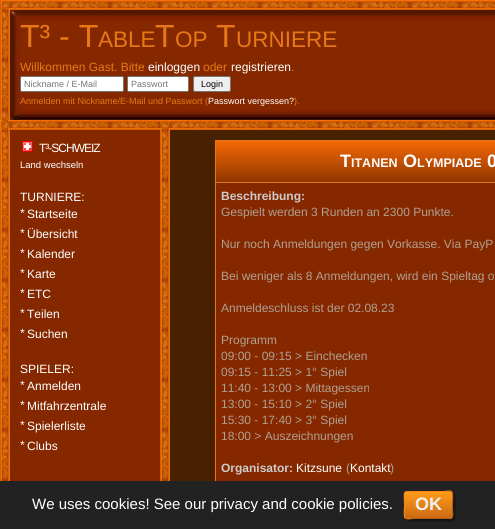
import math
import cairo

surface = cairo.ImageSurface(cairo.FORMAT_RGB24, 495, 529)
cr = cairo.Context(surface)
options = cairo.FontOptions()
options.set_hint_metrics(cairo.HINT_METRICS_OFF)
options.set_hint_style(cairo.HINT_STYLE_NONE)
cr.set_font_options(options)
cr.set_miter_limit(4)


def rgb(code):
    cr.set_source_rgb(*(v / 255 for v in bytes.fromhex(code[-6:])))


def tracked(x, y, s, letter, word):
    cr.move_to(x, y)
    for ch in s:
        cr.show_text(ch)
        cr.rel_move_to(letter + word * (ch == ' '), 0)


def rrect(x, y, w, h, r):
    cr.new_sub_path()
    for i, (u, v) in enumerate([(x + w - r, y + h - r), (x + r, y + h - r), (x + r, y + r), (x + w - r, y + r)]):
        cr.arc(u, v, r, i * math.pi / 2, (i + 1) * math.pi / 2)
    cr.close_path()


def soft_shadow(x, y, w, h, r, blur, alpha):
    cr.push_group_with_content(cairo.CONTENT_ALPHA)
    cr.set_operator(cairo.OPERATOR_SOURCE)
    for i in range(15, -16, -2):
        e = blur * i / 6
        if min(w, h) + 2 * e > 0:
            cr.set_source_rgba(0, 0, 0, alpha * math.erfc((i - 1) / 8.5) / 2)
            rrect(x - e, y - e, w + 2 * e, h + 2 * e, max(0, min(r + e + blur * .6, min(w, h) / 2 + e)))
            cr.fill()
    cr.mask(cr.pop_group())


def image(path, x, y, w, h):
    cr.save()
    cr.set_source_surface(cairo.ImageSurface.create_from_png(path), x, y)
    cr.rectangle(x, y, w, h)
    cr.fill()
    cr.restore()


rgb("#ffffff")
cr.paint()
image("img/1.png", 0, 0, 10, 10)
image("img/2.png", 10, 0, 485, 10)
image("img/3.png", 0, 10, 10, 110)
image("img/4.png", 10, 10, 10, 110)
image("img/5.png", 20, 10, 475, 10)
rgb("#852800")
cr.rectangle(20, 20, 475, 90)
cr.fill()
rgb("#ffffff")
rrect(20.5, 76.5, 103, 15, 1.5)
cr.fill_preserve()
rgb("#767676")
cr.set_line_width(1)
cr.stroke()
rgb("#ffffff")
rrect(127.5, 76.5, 61, 15, 1.5)
cr.fill_preserve()
rgb("#767676")
cr.stroke()
rgb("#efefef")
rrect(193.5, 76.5, 37, 15, 1.5)
cr.fill_preserve()
rgb("#767676")
cr.stroke()
image("img/6.png", 20, 110, 475, 10)
image("img/7.png", 0, 120, 10, 10)
image("img/8.png", 10, 120, 150, 10)
image("img/9.png", 160, 120, 10, 10)
image("img/10.png", 170, 120, 325, 10)
image("img/11.png", 0, 130, 10, 351)
rgb("#852800")
cr.rectangle(10, 130, 150, 351)
cr.fill()
image("img/12.png", 22, 141, 11, 11)
image("img/11.png", 160, 130, 10, 351)
for x, y, w, h, color in [
    (170, 130, 325, 351, "#482100"),
    (215, 140, 280, 1, "#e77817"),
    (215, 140, 1, 341, "#e77817"),
]:
    rgb(color)
    cr.rectangle(x, y, w, h)
    cr.fill()
gradient = cairo.LinearGradient(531, 141, 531, 183)
gradient.add_color_stop_rgba(0, 0.953, 0.412, 0.016, 1)
gradient.add_color_stop_rgba(1, 0.557, 0.204, 0, 1)
cr.set_source(gradient)
cr.rectangle(216, 141, 279, 41)
cr.fill()
for x, y, w, h, color in [
    (216, 183, 279, 298, "#852800"),
    (215, 182, 280, 1, "#e77817"),
    (0, 481, 495, 48, "#222222"),
]:
    rgb(color)
    cr.rectangle(x, y, w, h)
    cr.fill()
rgb("#000000")
soft_shadow(406, 493, 49, 28, 3, 1, 0.5)
cr.save()
rrect(404, 491, 49, 28, 3)
cr.clip()
gradient = cairo.LinearGradient(405, 466, 405, 492)
gradient.add_color_stop_rgba(0, 1, 0.612, 0.098, 1)
gradient.add_color_stop_rgba(1, 0.8, 0.416, 0.078, 1)
cr.set_source(gradient)
cr.rectangle(404, 491, 49, 1)
cr.fill()
gradient = cairo.LinearGradient(405, 492, 405, 518)
gradient.add_color_stop_rgba(0, 1, 0.612, 0.098, 1)
gradient.add_color_stop_rgba(1, 0.8, 0.416, 0.078, 1)
cr.set_source(gradient)
cr.rectangle(404, 492, 49, 26)
cr.fill()
gradient = cairo.LinearGradient(405, 518, 405, 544)
gradient.add_color_stop_rgba(0, 1, 0.612, 0.098, 1)
gradient.add_color_stop_rgba(1, 0.8, 0.416, 0.078, 1)
cr.set_source(gradient)
cr.rectangle(404, 518, 49, 1)
cr.fill()
cr.restore()
cr.new_path()
cr.move_to(452, 492)
cr.curve_to(453.5, 494, 452.5, 502.5, 452.5, 505)
cr.curve_to(452.5, 519, 455.5, 518.5, 443, 518.5)
cr.line_to(414, 518.5)
cr.curve_to(411, 518.5, 407.5, 520, 405, 518)
rgb("#b35d12")
cr.stroke()
cr.new_path()
cr.move_to(405, 518)
cr.curve_to(403.5, 516, 404.5, 507.5, 404.5, 505)
cr.curve_to(404.5, 491, 401.5, 491.5, 414, 491.5)
cr.line_to(443, 491.5)
cr.curve_to(446, 491.5, 449.5, 490, 452, 492)
rgb("#ff8519")
cr.stroke()
cr.select_font_face("Liberation Sans")
cr.set_font_size(32)
rgb("#e77817")
cr.move_to(20, 47)
cr.show_text("T³ - T")
cr.set_font_size(22.5)
cr.move_to(98, 47)
cr.show_text("ABLE")
cr.set_font_size(32)
cr.move_to(155, 47)
cr.show_text("T")
cr.set_font_size(22.5)
cr.move_to(175, 47)
cr.show_text("OP")
cr.set_font_size(32)
cr.move_to(216, 47)
cr.show_text("T")
cr.set_font_size(22.5)
cr.move_to(236, 47)
cr.show_text("URNIERE")
cr.set_font_size(12)
cr.move_to(20, 71)
cr.show_text("Willkommen Gast. Bitte")
rgb("#ffffff")
cr.move_to(148, 71)
cr.show_text("einloggen")
rgb("#e77817")
cr.move_to(203, 71)
cr.show_text("oder")
rgb("#ffffff")
cr.move_to(231, 71)
cr.show_text("registrieren")
rgb("#e77817")
cr.move_to(291, 71)
cr.show_text(".")
cr.set_font_size(9)
rgb("#757575")
cr.move_to(24, 87)
cr.show_text("Nickname / E-Mail")
cr.move_to(131, 87)
cr.show_text("Passwort")
rgb("#000000")
cr.move_to(201, 87)
cr.show_text("Login")
rgb("#e77817")
cr.move_to(20, 104)
cr.show_text("Anmelden mit Nickname/E-Mail und Passwort (")
rgb("#ffffff")
cr.move_to(208, 104)
cr.show_text("Passwort vergessen?")
rgb("#e77817")
cr.move_to(294, 104)
cr.show_text(").")
cr.set_font_size(12)
rgb("#ffffff")
tracked(39, 152, "T³-SCHWEIZ", -1, 0)
cr.set_font_size(9.5)
cr.move_to(20, 168)
cr.show_text("Land wechseln")
cr.set_font_size(12)
for x, y, s in [
    (20, 201, "TURNIERE:"),
    (20, 217, "*"),
    (27, 218, "Startseite"),
    (20, 237, "*"),
    (27, 238, "Übersicht"),
    (20, 257, "*"),
    (27, 258, "Kalender"),
    (20, 277, "*"),
    (27, 278, "Karte"),
    (20, 297, "*"),
    (27, 298, "ETC"),
    (20, 317, "*"),
    (27, 318, "Teilen"),
    (20, 337, "*"),
    (27, 338, "Suchen"),
    (20, 373, "SPIELER:"),
    (20, 389, "*"),
    (27, 390, "Anmelden"),
    (20, 409, "*"),
    (27, 410, "Mitfahrzentrale"),
    (20, 429, "*"),
    (27, 430, "Spielerliste"),
    (20, 449, "*"),
    (27, 450, "Clubs"),
]:
    cr.move_to(x, y)
    cr.show_text(s)
cr.select_font_face("Liberation Sans", cairo.FONT_SLANT_NORMAL, cairo.FONT_WEIGHT_BOLD)
cr.set_font_size(18)
cr.move_to(340, 167)
cr.show_text("T")
cr.set_font_size(12.5)
cr.move_to(351, 167)
cr.show_text("ITANEN")
cr.set_font_size(18)
cr.move_to(403, 167)
cr.show_text("O")
cr.set_font_size(12.5)
cr.move_to(417, 167)
cr.show_text("LYMPIADE")
cr.set_font_size(18)
cr.move_to(487, 167)
cr.show_text("0")
cr.set_font_size(12)
rgb("#cccccc")
cr.move_to(221, 200)
cr.show_text("Beschreibung:")
cr.select_font_face("Liberation Sans")
rgb("#b0a090")
for x, y, s in [
    (221, 216, "Gespielt werden 3 Runden an 2300 Punkte."),
    (221, 248, "Nur noch Anmeldungen gegen Vorkasse. Via PayP"),
    (221, 280, "Bei weniger als 8 Anmeldungen, wird ein Spieltag o"),
    (221, 312, "Anmeldeschluss ist der 02.08.23"),
    (221, 344, "Programm"),
    (221, 360, "09:00 - 09:15 > Einchecken"),
    (221, 376, "09:15 - 11:25 > 1° Spiel"),
    (221, 392, "11:40 - 13:00 > Mittagessen"),
    (221, 408, "13:00 - 15:10 > 2° Spiel"),
    (221, 424, "15:30 - 17:40 > 3° Spiel"),
    (221, 440, "18:00 > Auszeichnungen"),
]:
    cr.move_to(x, y)
    cr.show_text(s)
cr.select_font_face("Liberation Sans", cairo.FONT_SLANT_NORMAL, cairo.FONT_WEIGHT_BOLD)
rgb("#cccccc")
cr.move_to(221, 472)
cr.show_text("Organisator:")
cr.select_font_face("Liberation Sans")
rgb("#ffffff")
cr.move_to(296, 472)
cr.show_text("Kitzsune")
rgb("#b0a090")
cr.move_to(346, 472)
cr.show_text("(")
rgb("#ffffff")
cr.move_to(350, 472)
cr.show_text("Kontakt")
rgb("#b0a090")
cr.move_to(390, 472)
cr.show_text(")")
cr.set_font_size(15)
rgb("#ffffff")
cr.move_to(32, 509)
cr.show_text("We uses cookies! See our privacy and cookie policies.")
cr.select_font_face("Liberation Sans", cairo.FONT_SLANT_NORMAL, cairo.FONT_WEIGHT_BOLD)
cr.set_font_size(18)
rgb("#f0f0f0")
cr.move_to(415, 510)
cr.show_text("OK")
surface.write_to_png("page.png")
